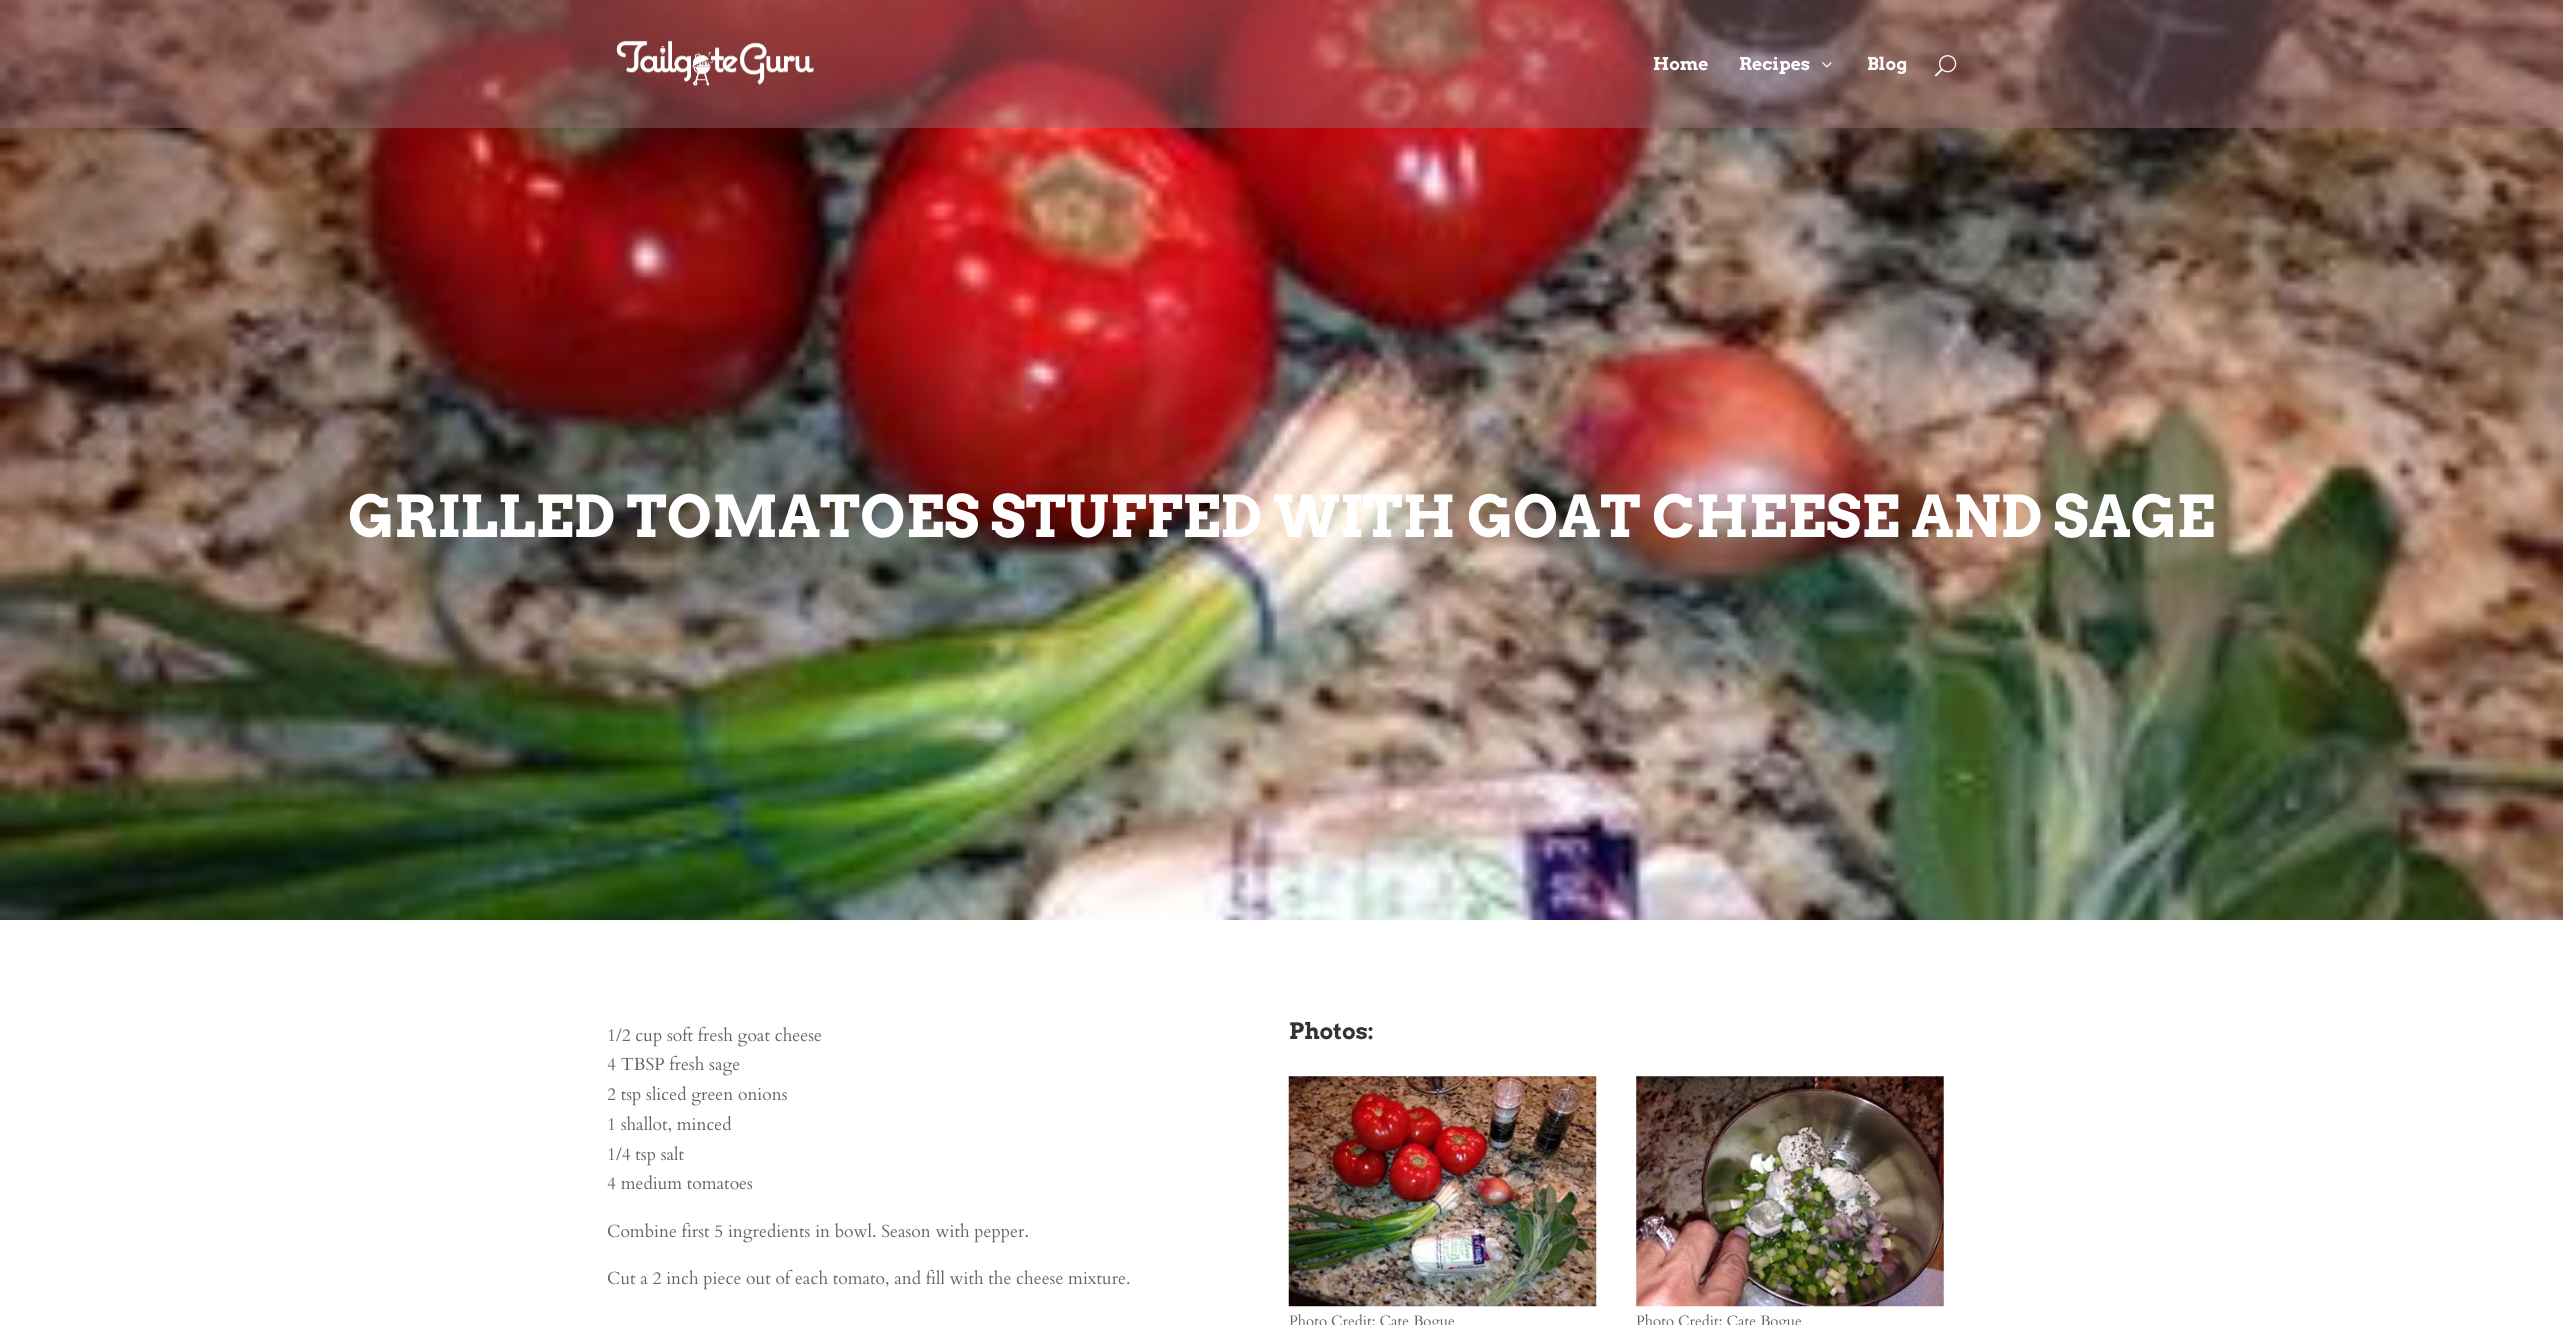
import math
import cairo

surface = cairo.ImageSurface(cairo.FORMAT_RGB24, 2563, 1325)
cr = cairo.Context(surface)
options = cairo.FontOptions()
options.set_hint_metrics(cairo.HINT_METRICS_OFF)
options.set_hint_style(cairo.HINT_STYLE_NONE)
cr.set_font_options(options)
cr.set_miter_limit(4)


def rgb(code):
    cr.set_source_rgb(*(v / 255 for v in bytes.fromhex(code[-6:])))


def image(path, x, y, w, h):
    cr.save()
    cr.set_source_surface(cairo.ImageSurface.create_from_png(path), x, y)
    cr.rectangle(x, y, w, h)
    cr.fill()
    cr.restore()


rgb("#ffffff")
cr.paint()
image("img/4.png", 0, 0, 2563, 920)
cr.set_source_rgba(0.588, 0.424, 0.447, 0.45)
cr.rectangle(0, 0, 2563, 128)
cr.fill()
image("img/1.png", 616, 40, 198, 47)
image("img/2.png", 1822, 62, 10, 6)
image("img/3.png", 1935, 55, 22, 22)
image("img/5.png", 1288, 1076, 309, 231)
image("img/6.png", 1636, 1076, 308, 231)
cr.select_font_face("Arvo", cairo.FONT_SLANT_NORMAL, cairo.FONT_WEIGHT_BOLD)
cr.set_font_size(17.5)
rgb("#ffffff")
for x, y, s in [
    (1653, 70, "Home"),
    (1739, 70, "Recipes"),
    (1867, 70, "Blog"),
]:
    cr.move_to(x, y)
    cr.show_text(s)
cr.set_font_size(57.5)
cr.move_to(348, 537)
cr.show_text("GRILLED TOMATOES STUFFED WITH GOAT CHEESE AND SAGE")
cr.select_font_face("Cardo")
cr.set_font_size(17.5)
rgb("#666666")
for x, y, s in [
    (607, 1041, "1/2 cup soft fresh goat cheese"),
    (607, 1070, "4 TBSP fresh sage"),
    (607, 1100, "2 tsp sliced green onions"),
    (607, 1130, "1 shallot, minced"),
    (607, 1160, "1/4 tsp salt"),
    (607, 1189, "4 medium tomatoes"),
    (607, 1237, "Combine first 5 ingredients in bowl. Season with pepper."),
    (607, 1284, "Cut a 2 inch piece out of each tomato, and fill with the cheese mixture."),
]:
    cr.move_to(x, y)
    cr.show_text(s)
cr.select_font_face("Arvo", cairo.FONT_SLANT_NORMAL, cairo.FONT_WEIGHT_BOLD)
cr.set_font_size(22.5)
rgb("#333333")
cr.move_to(1289, 1039)
cr.show_text("Photos:")
cr.select_font_face("Cardo")
cr.set_font_size(15)
rgb("#666666")
cr.move_to(1289, 1326)
cr.show_text("Photo Credit: Cate Bogue")
cr.move_to(1636, 1326)
cr.show_text("Photo Credit: Cate Bogue")
surface.write_to_png("page.png")
